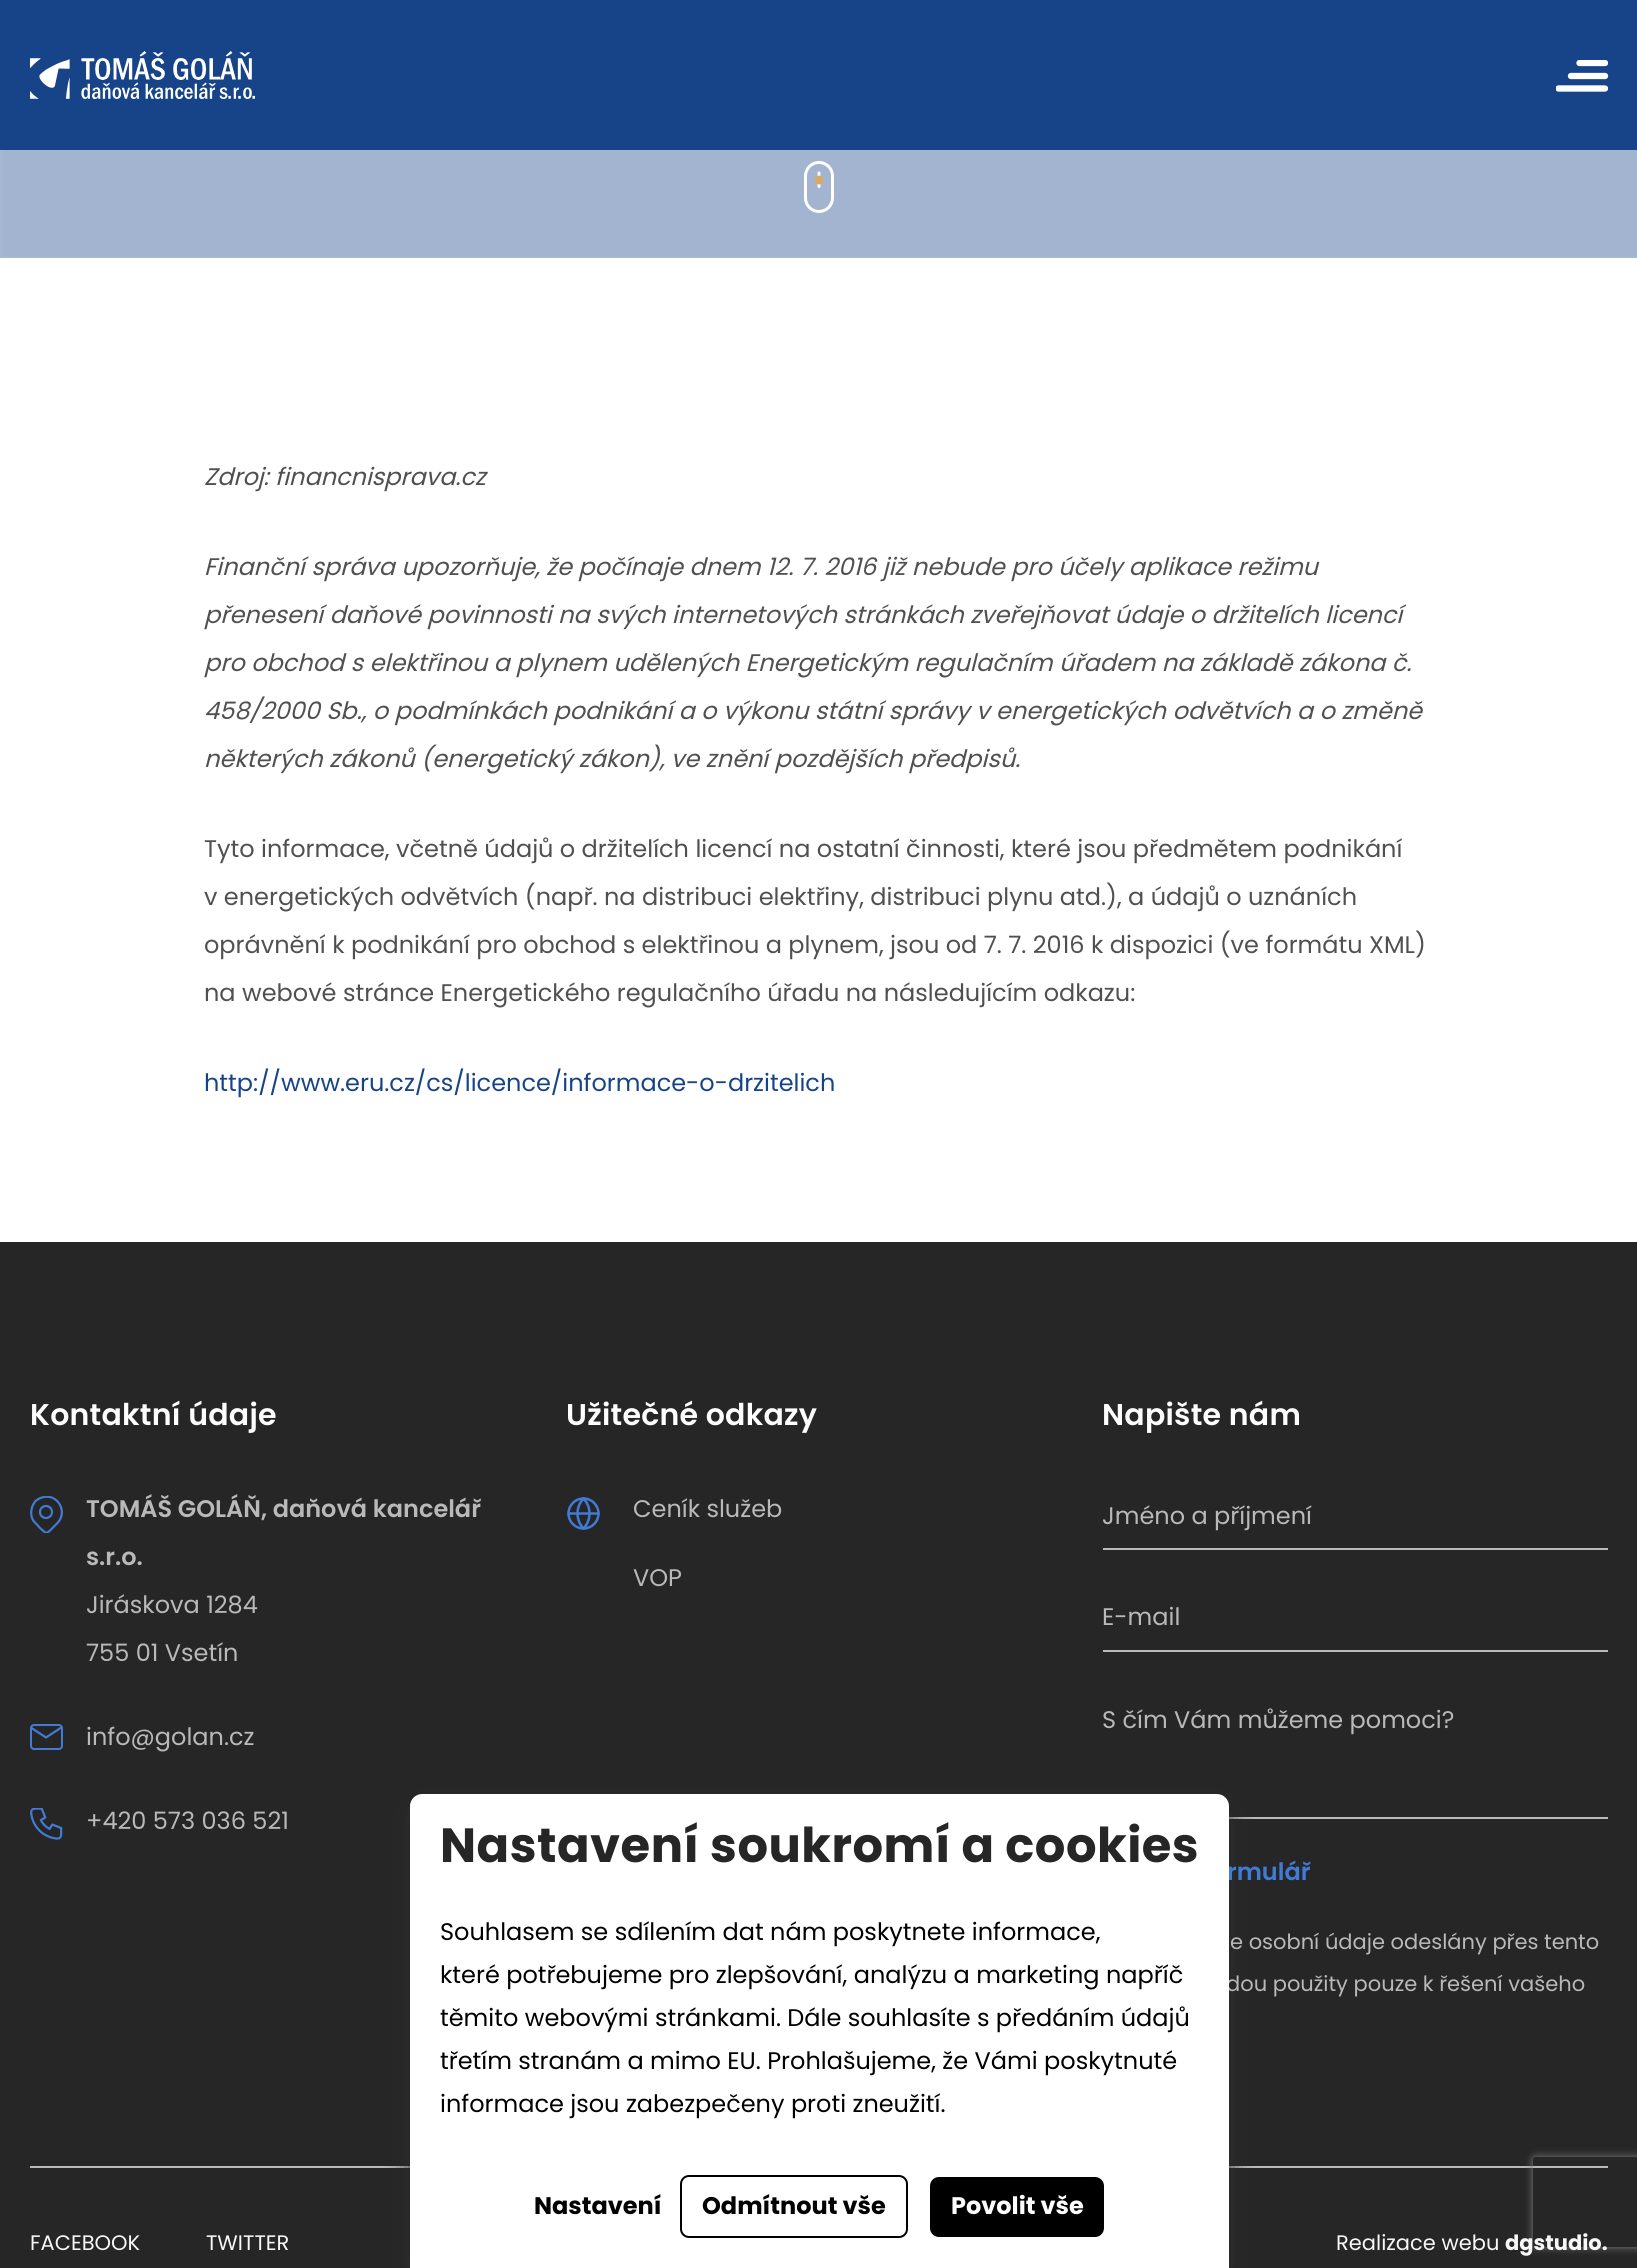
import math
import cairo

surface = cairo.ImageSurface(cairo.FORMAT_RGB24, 1637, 2268)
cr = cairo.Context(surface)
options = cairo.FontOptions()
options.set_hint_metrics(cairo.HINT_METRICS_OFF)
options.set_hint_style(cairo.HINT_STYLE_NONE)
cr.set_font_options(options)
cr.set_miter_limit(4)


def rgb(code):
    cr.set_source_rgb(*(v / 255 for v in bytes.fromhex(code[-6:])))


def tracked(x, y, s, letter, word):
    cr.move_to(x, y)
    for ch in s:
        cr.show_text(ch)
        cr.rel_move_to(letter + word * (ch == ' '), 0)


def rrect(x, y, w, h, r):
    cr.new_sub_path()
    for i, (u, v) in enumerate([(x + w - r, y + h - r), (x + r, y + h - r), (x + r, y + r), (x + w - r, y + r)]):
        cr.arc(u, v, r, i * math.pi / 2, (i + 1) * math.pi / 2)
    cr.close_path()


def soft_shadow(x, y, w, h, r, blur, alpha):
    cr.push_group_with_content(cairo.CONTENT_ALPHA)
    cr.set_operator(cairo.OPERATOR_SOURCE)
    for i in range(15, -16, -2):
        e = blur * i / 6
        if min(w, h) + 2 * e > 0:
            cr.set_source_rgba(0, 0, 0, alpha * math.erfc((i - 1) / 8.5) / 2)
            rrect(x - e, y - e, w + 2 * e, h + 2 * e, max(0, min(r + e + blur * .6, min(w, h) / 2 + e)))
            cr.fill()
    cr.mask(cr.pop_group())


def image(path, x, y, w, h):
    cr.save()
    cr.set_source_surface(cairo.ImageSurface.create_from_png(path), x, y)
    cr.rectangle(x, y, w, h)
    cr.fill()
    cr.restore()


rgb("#ffffff")
cr.paint()
cr.save()
cr.rectangle(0, 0, 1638, 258)
cr.clip()
rgb("#174489")
soft_shadow(-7, -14, 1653, 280, 0, 4.5, 0.4)
cr.restore()
rrect(805.5, 162.5, 27, 49, 13.5)
rgb("#ffffff")
cr.set_line_width(3)
cr.stroke()
cr.new_path()
cr.move_to(819, 173)
cr.line_to(819, 186.5)
cr.set_line_cap(cairo.LINE_CAP_ROUND)
cr.stroke()
rgb("#d6aa6d")
cr.arc(819, 180, 4.5, 0, 2 * math.pi)
cr.fill()
rgb("#174489")
cr.rectangle(0, 0, 1637, 150)
cr.fill()
image("img/1.png", 30, 51, 225, 48)
cr.save()
cr.rectangle(1556, 60, 52, 32)
cr.clip()
cr.new_path()
cr.move_to(1579.5, 63)
cr.line_to(1605, 63)
rgb("#ffffff")
cr.set_line_width(6.3)
cr.stroke()
cr.restore()
cr.new_path()
cr.move_to(1571, 76)
cr.line_to(1605, 76)
rgb("#ffffff")
cr.set_line_width(6.3)
cr.stroke()
cr.save()
cr.rectangle(1556, 60, 52, 32)
cr.clip()
cr.new_path()
cr.move_to(1558.5, 88.5)
cr.line_to(1605, 88.5)
cr.stroke()
cr.restore()
rgb("#262626")
cr.rectangle(0, 1242, 1637, 1026)
cr.fill()
cr.arc(46, 1512, 6, 0, 2 * math.pi)
rgb("#417bd5")
cr.set_line_width(2.2)
cr.set_line_cap(cairo.LINE_CAP_BUTT)
cr.stroke()
cr.save()
cr.rectangle(30, 1496, 33, 37)
cr.clip()
cr.new_path()
cr.move_to(57.5, 1523)
cr.line_to(52, 1528.5)
cr.curve_to(50, 1530.5, 47.5, 1534, 44.5, 1532)
cr.line_to(39.5, 1527.5)
cr.curve_to(37.5, 1525, 35.5, 1523, 33.5, 1521)
cr.curve_to(29.5, 1514.5, 31, 1506.5, 35.5, 1501)
cr.curve_to(37.5, 1499.5, 39.5, 1498, 42, 1497.5)
cr.curve_to(57, 1492.5, 68.5, 1511.5, 57.5, 1523)
cr.close_path()
cr.set_line_cap(cairo.LINE_CAP_ROUND)
cr.set_line_join(cairo.LINE_JOIN_ROUND)
cr.stroke()
cr.restore()
rrect(31, 1725, 31, 24, 3)
cr.set_line_width(2)
cr.stroke()
cr.new_path()
cr.move_to(31.5, 1728)
cr.line_to(46, 1737.5)
cr.line_to(60.5, 1728)
cr.set_line_width(2.2)
cr.set_line_cap(cairo.LINE_CAP_ROUND)
cr.set_line_join(cairo.LINE_JOIN_ROUND)
cr.stroke()
image("img/2.png", 30, 1808, 33, 32)
cr.arc(583.5, 1513.5, 15, 0, 2 * math.pi)
cr.set_line_width(2.5)
cr.set_line_cap(cairo.LINE_CAP_BUTT)
cr.set_line_join(cairo.LINE_JOIN_MITER)
cr.stroke()
cr.new_path()
cr.move_to(568.5, 1513.5)
cr.line_to(598.5, 1513.5)
cr.move_to(583.5, 1498.5)
cr.curve_to(591.5, 1507, 591.5, 1520, 583.5, 1528.5)
cr.curve_to(575.5, 1520, 575.5, 1507, 583.5, 1498.5)
cr.close_path()
cr.set_line_cap(cairo.LINE_CAP_ROUND)
cr.set_line_join(cairo.LINE_JOIN_ROUND)
cr.stroke()
for x, y, w, h, color in [
    (1103, 1548, 505, 2, "#b9b9b9"),
    (1103, 1650, 505, 2, "#b9b9b9"),
    (1229, 1817, 379, 2, "#b9b9b9"),
    (30, 2166, 1578, 2, "#b9b9b9"),
]:
    rgb(color)
    cr.rectangle(x, y, w, h)
    cr.fill()
rgb("#2d2d2d")
soft_shadow(410, 1806, 819, 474, 12, 12, 1)
cr.save()
cr.set_fill_rule(cairo.FILL_RULE_EVEN_ODD)
cr.new_path()
cr.move_to(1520, 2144)
cr.line_to(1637, 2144)
cr.line_to(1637, 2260)
cr.line_to(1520, 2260)
cr.close_path()
cr.move_to(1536, 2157)
cr.line_to(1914, 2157)
cr.curve_to(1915.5, 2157, 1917, 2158.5, 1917, 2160)
cr.line_to(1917, 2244)
cr.curve_to(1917, 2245.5, 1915.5, 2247, 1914, 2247)
cr.line_to(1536, 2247)
cr.curve_to(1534.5, 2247, 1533, 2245.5, 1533, 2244)
cr.line_to(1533, 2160)
cr.curve_to(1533, 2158.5, 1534.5, 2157, 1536, 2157)
cr.close_path()
cr.clip()
rgb("#808080")
soft_shadow(1533, 2157, 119, 90, 3, 4, 1)
cr.restore()
cr.select_font_face("Poppins", cairo.FONT_SLANT_ITALIC)
cr.set_font_size(24)
rgb("#505050")
for x, y, s in [
    (204, 485, "Zdroj: financnisprava.cz"),
    (204, 575, "Finanční správa upozorňuje, že počínaje dnem 12. 7. 2016 již nebude pro účely aplikace režimu"),
    (204, 623, "přenesení daňové povinnosti na svých internetových stránkách zveřejňovat údaje o držitelích licencí"),
    (204, 671, "pro obchod s elektřinou a plynem udělených Energetickým regulačním úřadem na základě zákona č."),
    (204, 719, "458/2000 Sb., o podmínkách podnikání a o výkonu státní správy v energetických odvětvích a o změně"),
    (204, 767, "některých zákonů (energetický zákon), ve znění pozdějších předpisů."),
]:
    cr.move_to(x, y)
    cr.show_text(s)
cr.select_font_face("Poppins")
for x, y, s in [
    (204, 857, "Tyto informace, včetně údajů o držitelích licencí na ostatní činnosti, které jsou předmětem podnikání"),
    (204, 905, "v energetických odvětvích (např. na distribuci elektřiny, distribuci plynu atd.), a údajů o uznáních"),
    (204, 953, "oprávnění k podnikání pro obchod s elektřinou a plynem, jsou od 7. 7. 2016 k dispozici (ve formátu XML)"),
    (204, 1001, "na webové stránce Energetického regulačního úřadu na následujícím odkazu:"),
]:
    cr.move_to(x, y)
    cr.show_text(s)
rgb("#174489")
cr.move_to(204, 1091)
cr.show_text("http://www.eru.cz/cs/licence/informace-o-drzitelich")
cr.select_font_face("Poppins SemiBold")
cr.set_font_size(30)
rgb("#fefefe")
tracked(30, 1425, "Kontaktní údaje", 0.25, 0)
cr.set_font_size(24)
rgb("#b9b9b9")
cr.move_to(86, 1517)
cr.show_text("TOMÁŠ GOLÁŇ, daňová kancelář")
cr.move_to(86, 1565)
cr.show_text("s.r.o.")
cr.select_font_face("Poppins")
for x, y, s in [
    (86, 1613, "Jiráskova 1284"),
    (86, 1661, "755 01 Vsetín"),
    (86, 1745, "info@golan.cz"),
    (86, 1829, "+420 573 036 521"),
]:
    cr.move_to(x, y)
    cr.show_text(s)
cr.select_font_face("Poppins SemiBold")
cr.set_font_size(30)
rgb("#fefefe")
tracked(566, 1425, "Užitečné odkazy", 0.25, 0)
cr.select_font_face("Poppins")
cr.set_font_size(24)
rgb("#b9b9b9")
cr.move_to(633, 1517)
cr.show_text("Ceník služeb")
cr.move_to(633, 1586)
cr.show_text("VOP")
cr.select_font_face("Poppins SemiBold")
cr.set_font_size(30)
rgb("#fefefe")
tracked(1102, 1425, "Napište nám", 0.25, 0)
cr.select_font_face("Poppins")
cr.set_font_size(24)
rgb("#b9b9b9")
for x, y, s in [
    (1102, 1524, "Jméno a příjmení"),
    (1102, 1625, "E-mail"),
    (1102, 1728, "S čím Vám můžeme pomoci?"),
]:
    cr.move_to(x, y)
    cr.show_text(s)
cr.select_font_face("Poppins SemiBold")
rgb("#417bd5")
cr.move_to(1227, 1880)
cr.show_text("rmulář")
cr.select_font_face("Poppins")
cr.set_font_size(21)
rgb("#b9b9b9")
cr.move_to(1230, 1949)
cr.show_text("e osobní údaje odeslány přes tento")
cr.move_to(1226, 1991)
cr.show_text("dou použity pouze k řešení vašeho")
rgb("#f7f7f7")
for x, y, s in [
    (30, 2250, "FACEBOOK"),
    (206, 2250, "TWITTER"),
    (1336, 2250, "Realizace webu"),
]:
    cr.move_to(x, y)
    cr.show_text(s)
cr.select_font_face("Poppins", cairo.FONT_SLANT_NORMAL, cairo.FONT_WEIGHT_BOLD)
cr.move_to(1505, 2250)
cr.show_text("dgstudio.")
rgb("#ffffff")
cr.new_path()
cr.move_to(422, 1794)
cr.line_to(1217, 1794)
cr.curve_to(1223.5, 1794, 1229, 1799.5, 1229, 1806)
cr.line_to(1229, 2268)
cr.line_to(410, 2268)
cr.line_to(410, 1806)
cr.curve_to(410, 1799.5, 415.5, 1794, 422, 1794)
cr.close_path()
cr.fill()
cr.set_font_size(48)
rgb("#262626")
tracked(440, 1862, "Nastavení soukromí a cookies", 0.5, 0)
cr.select_font_face("Poppins")
cr.set_font_size(24)
rgb("#000000")
for x, y, s in [
    (440, 1940, "Souhlasem se sdílením dat nám poskytnete informace,"),
    (440, 1983, "které potřebujeme pro zlepšování, analýzu a marketing napříč"),
    (440, 2026, "těmito webovými stránkami. Dále souhlasíte s předáním údajů"),
    (440, 2069, "třetím stranám a mimo EU. Prohlašujeme, že Vámi poskytnuté"),
    (440, 2112, "informace jsou zabezpečeny proti zneužití."),
]:
    cr.move_to(x, y)
    cr.show_text(s)
cr.select_font_face("Poppins", cairo.FONT_SLANT_NORMAL, cairo.FONT_WEIGHT_BOLD)
cr.move_to(534, 2214)
cr.show_text("Nastavení")
rrect(681, 2176, 226, 61, 8)
cr.set_line_width(2)
cr.set_line_cap(cairo.LINE_CAP_BUTT)
cr.set_line_join(cairo.LINE_JOIN_MITER)
cr.stroke()
cr.move_to(702, 2214)
cr.show_text("Odmítnout vše")
rrect(930, 2177, 174, 60, 9)
cr.fill()
rgb("#fefefe")
cr.move_to(951, 2214)
cr.show_text("Povolit vše")
surface.write_to_png("page.png")
